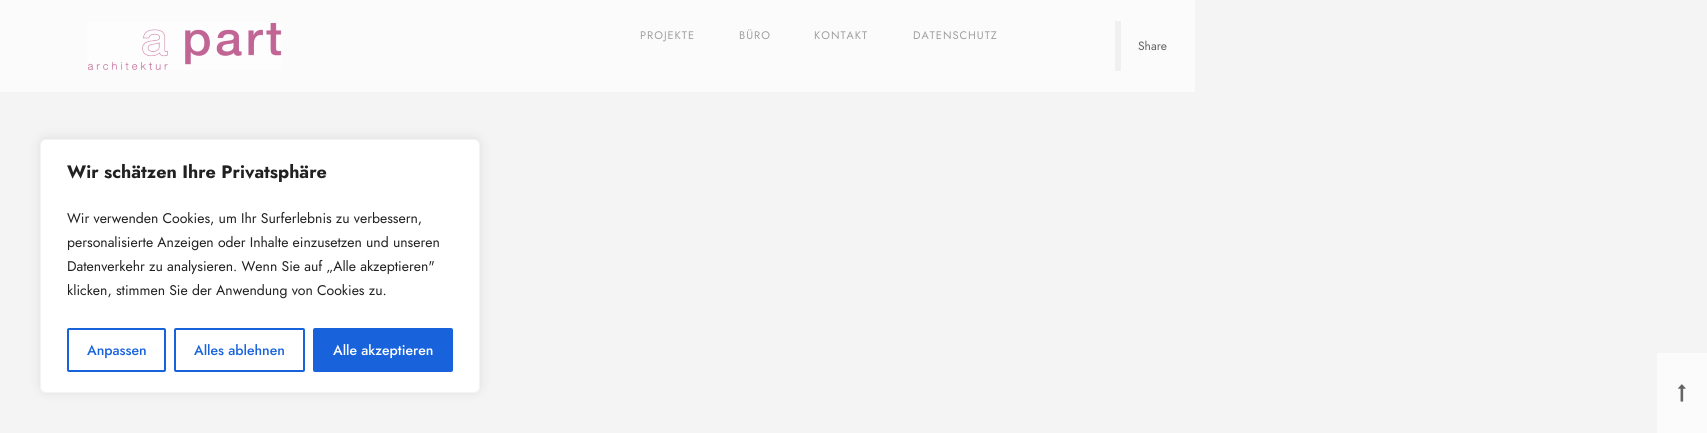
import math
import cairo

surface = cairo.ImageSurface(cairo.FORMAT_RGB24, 1707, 433)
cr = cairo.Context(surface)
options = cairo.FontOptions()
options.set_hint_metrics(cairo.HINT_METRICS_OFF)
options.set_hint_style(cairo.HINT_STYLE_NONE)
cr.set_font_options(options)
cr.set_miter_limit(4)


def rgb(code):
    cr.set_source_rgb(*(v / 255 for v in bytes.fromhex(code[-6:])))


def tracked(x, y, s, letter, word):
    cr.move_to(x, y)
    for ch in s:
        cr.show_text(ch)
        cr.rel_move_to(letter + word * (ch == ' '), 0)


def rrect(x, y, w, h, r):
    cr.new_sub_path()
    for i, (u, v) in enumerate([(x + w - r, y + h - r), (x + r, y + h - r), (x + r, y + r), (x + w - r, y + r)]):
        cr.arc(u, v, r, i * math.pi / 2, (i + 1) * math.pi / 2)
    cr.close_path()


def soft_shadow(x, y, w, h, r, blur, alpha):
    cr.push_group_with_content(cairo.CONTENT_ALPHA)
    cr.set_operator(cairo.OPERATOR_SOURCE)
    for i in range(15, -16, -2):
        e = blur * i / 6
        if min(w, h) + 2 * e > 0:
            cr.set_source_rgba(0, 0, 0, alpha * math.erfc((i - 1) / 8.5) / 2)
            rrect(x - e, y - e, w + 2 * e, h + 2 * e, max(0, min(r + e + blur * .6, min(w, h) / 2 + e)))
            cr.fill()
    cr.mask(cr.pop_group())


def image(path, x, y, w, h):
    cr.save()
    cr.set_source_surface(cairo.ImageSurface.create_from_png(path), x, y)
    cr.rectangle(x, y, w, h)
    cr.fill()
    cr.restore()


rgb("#f4f4f4")
cr.paint()
rgb("#fbfbfb")
cr.rectangle(0, 0, 1195, 92)
cr.fill()
image("img/1.png", 87, 22, 195, 48)
rgb("#f0f0f0")
cr.rectangle(1115, 21, 6, 50)
cr.fill()
rgb("#fbfbfb")
cr.rectangle(1657, 353, 50, 80)
cr.fill()
image("img/2.png", 1678, 384, 8, 18)
rgb("#acabab")
soft_shadow(40, 138, 440, 254, 6, 5, 0.3)
rgb("#ffffff")
rrect(40.5, 139.5, 439, 253, 5.5)
cr.fill_preserve()
rgb("#f4f4f4")
cr.set_line_width(1)
cr.stroke()
rrect(68, 329, 97, 42, 1)
rgb("#1863dc")
cr.set_line_width(2)
cr.stroke()
rrect(175, 329, 129, 42, 1)
cr.stroke()
rrect(314, 329, 138, 42, 1)
cr.fill_preserve()
cr.stroke()
cr.select_font_face("Jost")
cr.set_font_size(11)
rgb("#9f9f9f")
for x, y, s in [
    (640, 39, "PROJEKTE"),
    (739, 39, "BÜRO"),
    (814, 39, "KONTAKT"),
    (913, 39, "DATENSCHUTZ"),
]:
    tracked(x, y, s, 1, 0)
cr.set_font_size(12)
rgb("#626262")
cr.move_to(1138, 50)
cr.show_text("Share")
cr.select_font_face("Jost", cairo.FONT_SLANT_NORMAL, cairo.FONT_WEIGHT_BOLD)
cr.set_font_size(18)
rgb("#212121")
cr.move_to(67, 178)
cr.show_text("Wir schätzen Ihre Privatsphäre")
cr.select_font_face("Jost")
cr.set_font_size(14)
for x, y, s in [
    (67, 223, "Wir verwenden Cookies, um Ihr Surferlebnis zu verbessern,"),
    (67, 247, "personalisierte Anzeigen oder Inhalte einzusetzen und unseren"),
    (67, 271, "Datenverkehr zu analysieren. Wenn Sie auf „Alle akzeptieren\""),
    (67, 295, "klicken, stimmen Sie der Anwendung von Cookies zu."),
]:
    cr.move_to(x, y)
    cr.show_text(s)
cr.select_font_face("Jost Medium")
rgb("#1863dc")
cr.move_to(87, 355)
cr.show_text("Anpassen")
cr.move_to(194, 355)
cr.show_text("Alles ablehnen")
rgb("#ffffff")
cr.move_to(333, 355)
cr.show_text("Alle akzeptieren")
surface.write_to_png("page.png")
